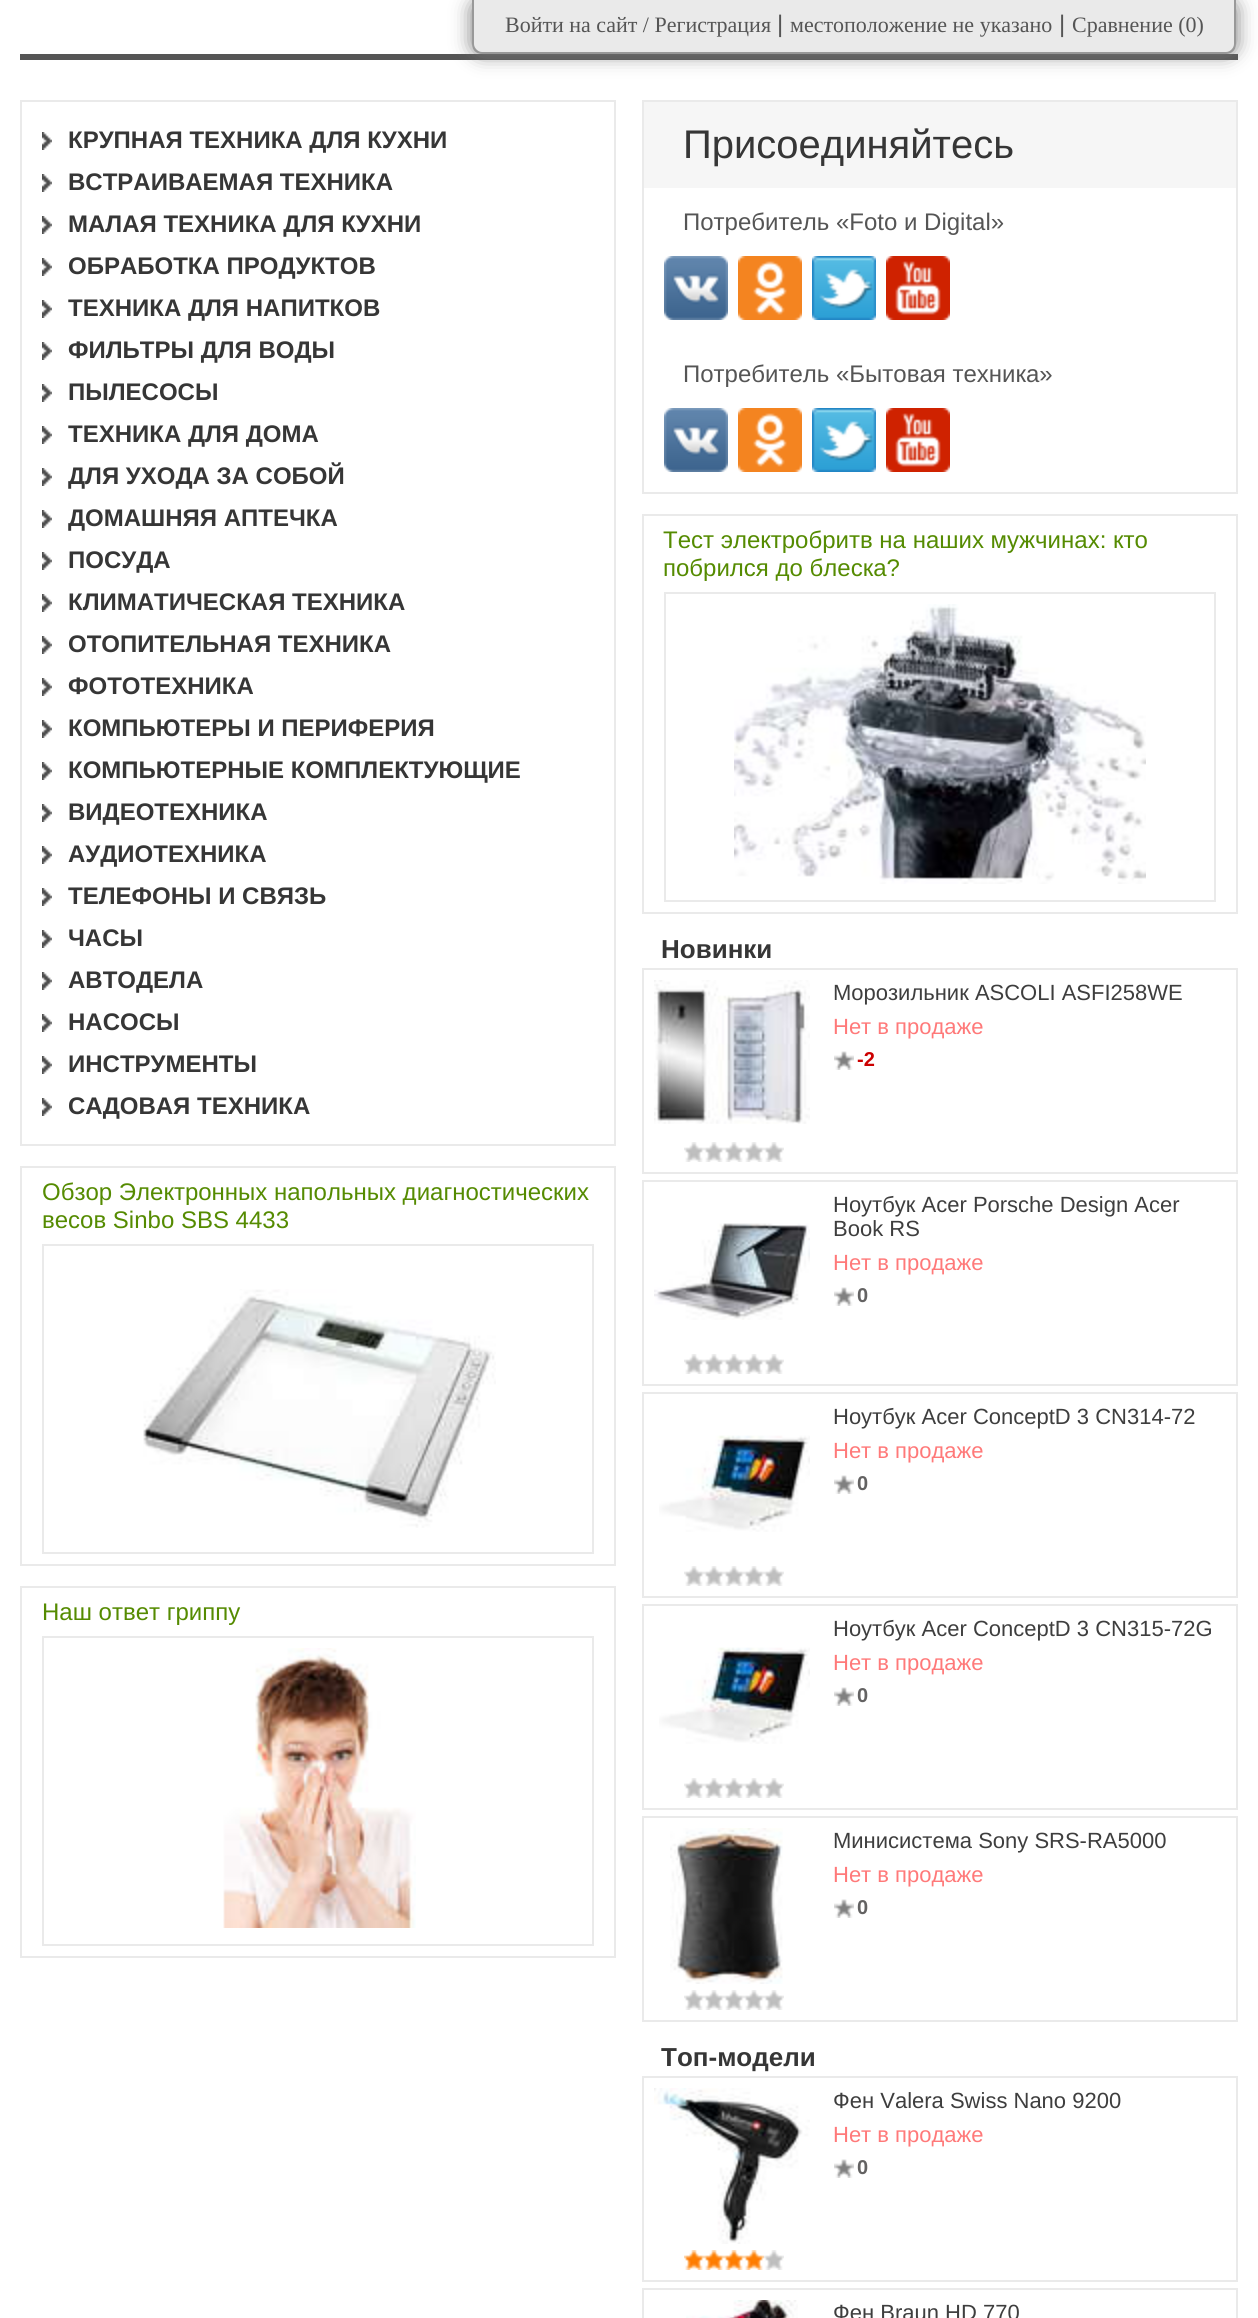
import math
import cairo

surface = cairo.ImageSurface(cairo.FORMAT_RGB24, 1258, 2318)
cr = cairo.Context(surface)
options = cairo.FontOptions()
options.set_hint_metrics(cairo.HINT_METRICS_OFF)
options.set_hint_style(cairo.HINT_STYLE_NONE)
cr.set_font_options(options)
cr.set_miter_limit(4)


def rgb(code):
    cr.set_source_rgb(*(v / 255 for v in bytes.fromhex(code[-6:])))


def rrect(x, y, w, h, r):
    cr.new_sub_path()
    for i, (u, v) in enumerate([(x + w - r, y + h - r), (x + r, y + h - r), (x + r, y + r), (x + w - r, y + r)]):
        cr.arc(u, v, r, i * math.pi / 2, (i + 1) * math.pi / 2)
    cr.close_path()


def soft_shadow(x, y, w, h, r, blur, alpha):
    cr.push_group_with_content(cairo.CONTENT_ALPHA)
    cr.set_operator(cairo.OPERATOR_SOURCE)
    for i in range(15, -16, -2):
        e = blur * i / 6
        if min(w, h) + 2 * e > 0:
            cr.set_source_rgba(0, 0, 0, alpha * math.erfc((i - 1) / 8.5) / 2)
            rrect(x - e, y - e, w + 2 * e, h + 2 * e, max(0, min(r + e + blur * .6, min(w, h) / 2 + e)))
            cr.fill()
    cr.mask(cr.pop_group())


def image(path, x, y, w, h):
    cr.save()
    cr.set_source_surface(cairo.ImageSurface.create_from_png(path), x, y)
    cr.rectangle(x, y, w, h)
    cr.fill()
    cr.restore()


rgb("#ffffff")
cr.paint()
rgb("#555555")
cr.rectangle(20, 54, 1218, 6)
cr.fill()
rgb("#777777")
soft_shadow(472, 0, 764, 54, 10, 10, 1)
rgb("#eaeaea")
cr.new_path()
cr.move_to(472, 0)
cr.line_to(1236, 0)
cr.line_to(1236, 44)
cr.curve_to(1236, 49.5, 1231.5, 54, 1226, 54)
cr.line_to(482, 54)
cr.curve_to(476.5, 54, 472, 49.5, 472, 44)
cr.close_path()
cr.fill()
rgb("#999999")
cr.set_fill_rule(cairo.FILL_RULE_EVEN_ODD)
cr.new_path()
cr.move_to(472, 0)
cr.line_to(1236, 0)
cr.line_to(1236, 44)
cr.curve_to(1236, 50, 1232, 54, 1226, 54)
cr.line_to(482, 54)
cr.curve_to(476, 54, 472, 50, 472, 44)
cr.close_path()
cr.move_to(474, 0)
cr.line_to(1234, 0)
cr.line_to(1234, 44)
cr.curve_to(1234, 48, 1230, 52, 1226, 52)
cr.line_to(482, 52)
cr.curve_to(478, 52, 474, 48, 474, 44)
cr.close_path()
cr.fill()
cr.rectangle(21, 101, 594, 1044)
rgb("#eaeaea")
cr.stroke()
image("img/1.png", 42, 132, 10, 18)
image("img/1.png", 42, 174, 10, 18)
image("img/1.png", 42, 216, 10, 18)
image("img/1.png", 42, 258, 10, 18)
image("img/1.png", 42, 300, 10, 18)
image("img/1.png", 42, 342, 10, 18)
image("img/1.png", 42, 384, 10, 18)
image("img/1.png", 42, 426, 10, 18)
image("img/1.png", 42, 468, 10, 18)
image("img/1.png", 42, 510, 10, 18)
image("img/1.png", 42, 552, 10, 18)
image("img/1.png", 42, 594, 10, 18)
image("img/1.png", 42, 636, 10, 18)
image("img/1.png", 42, 678, 10, 18)
image("img/1.png", 42, 720, 10, 18)
image("img/1.png", 42, 762, 10, 18)
image("img/1.png", 42, 804, 10, 18)
image("img/1.png", 42, 846, 10, 18)
image("img/1.png", 42, 888, 10, 18)
image("img/1.png", 42, 930, 10, 18)
image("img/1.png", 42, 972, 10, 18)
image("img/1.png", 42, 1014, 10, 18)
image("img/1.png", 42, 1056, 10, 18)
image("img/1.png", 42, 1098, 10, 18)
cr.rectangle(21, 1167, 594, 398)
cr.stroke()
cr.rectangle(43, 1245, 550, 308)
cr.stroke()
image("img/2.png", 143, 1289, 353, 239)
cr.rectangle(21, 1587, 594, 370)
cr.stroke()
cr.rectangle(43, 1637, 550, 308)
cr.stroke()
image("img/3.png", 223, 1648, 193, 280)
cr.rectangle(643, 101, 594, 392)
cr.stroke()
rgb("#f6f6f6")
cr.rectangle(644, 102, 592, 86)
cr.fill()
image("img/4.png", 664, 256, 64, 64)
image("img/5.png", 738, 256, 64, 64)
image("img/6.png", 812, 256, 64, 64)
image("img/7.png", 886, 256, 64, 64)
image("img/4.png", 664, 408, 64, 64)
image("img/5.png", 738, 408, 64, 64)
image("img/6.png", 812, 408, 64, 64)
image("img/7.png", 886, 408, 64, 64)
cr.rectangle(643, 515, 594, 398)
rgb("#eaeaea")
cr.stroke()
cr.rectangle(665, 593, 550, 308)
cr.stroke()
image("img/8.png", 734, 604, 412, 280)
cr.rectangle(643, 969, 594, 204)
cr.stroke()
image("img/9.png", 654, 980, 156, 144)
image("img/10.png", 684, 1142, 100, 20)
image("img/11.png", 834, 1051, 20, 19)
cr.rectangle(643, 1181, 594, 204)
cr.stroke()
image("img/12.png", 654, 1223, 156, 97)
image("img/10.png", 684, 1354, 100, 20)
image("img/11.png", 834, 1287, 20, 19)
cr.rectangle(643, 1393, 594, 204)
cr.stroke()
image("img/13.png", 659, 1435, 151, 97)
image("img/10.png", 684, 1566, 100, 20)
image("img/11.png", 834, 1475, 20, 19)
cr.rectangle(643, 1605, 594, 204)
cr.stroke()
image("img/13.png", 659, 1647, 151, 97)
image("img/10.png", 684, 1778, 100, 20)
image("img/11.png", 834, 1687, 20, 19)
cr.rectangle(643, 1817, 594, 204)
cr.stroke()
image("img/14.png", 670, 1828, 113, 156)
image("img/10.png", 684, 1990, 100, 20)
image("img/11.png", 834, 1899, 20, 19)
cr.rectangle(643, 2077, 594, 204)
cr.stroke()
image("img/15.png", 654, 2088, 156, 156)
image("img/16.png", 764, 2250, 20, 20)
image("img/17.png", 684, 2250, 80, 20)
image("img/11.png", 834, 2159, 20, 19)
cr.rectangle(643, 2289, 594, 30)
cr.stroke()
image("img/18.png", 686, 2300, 112, 18)
cr.select_font_face("Liberation Serif")
cr.set_font_size(22)
rgb("#555555")
cr.move_to(505, 32)
cr.show_text("Войти на сайт / Регистрация")
cr.select_font_face("Liberation Sans")
cr.set_font_size(24)
cr.move_to(777, 32)
cr.show_text("|")
cr.select_font_face("Liberation Serif")
cr.set_font_size(22)
cr.move_to(790, 32)
cr.show_text("местоположение не указано")
cr.select_font_face("Liberation Sans")
cr.set_font_size(24)
cr.move_to(1059, 32)
cr.show_text("|")
cr.select_font_face("Liberation Serif")
cr.set_font_size(22)
cr.move_to(1072, 32)
cr.show_text("Сравнение (0)")
cr.select_font_face("Liberation Sans", cairo.FONT_SLANT_NORMAL, cairo.FONT_WEIGHT_BOLD)
cr.set_font_size(24)
rgb("#363636")
for x, y, s in [
    (68, 148, "КРУПНАЯ ТЕХНИКА ДЛЯ КУХНИ"),
    (68, 190, "ВСТРАИВАЕМАЯ ТЕХНИКА"),
    (68, 232, "МАЛАЯ ТЕХНИКА ДЛЯ КУХНИ"),
    (68, 274, "ОБРАБОТКА ПРОДУКТОВ"),
    (68, 316, "ТЕХНИКА ДЛЯ НАПИТКОВ"),
    (68, 358, "ФИЛЬТРЫ ДЛЯ ВОДЫ"),
    (68, 400, "ПЫЛЕСОСЫ"),
    (68, 442, "ТЕХНИКА ДЛЯ ДОМА"),
    (68, 484, "ДЛЯ УХОДА ЗА СОБОЙ"),
    (68, 526, "ДОМАШНЯЯ АПТЕЧКА"),
    (68, 568, "ПОСУДА"),
    (68, 610, "КЛИМАТИЧЕСКАЯ ТЕХНИКА"),
    (68, 652, "ОТОПИТЕЛЬНАЯ ТЕХНИКА"),
    (68, 694, "ФОТОТЕХНИКА"),
    (68, 736, "КОМПЬЮТЕРЫ И ПЕРИФЕРИЯ"),
    (68, 778, "КОМПЬЮТЕРНЫЕ КОМПЛЕКТУЮЩИЕ"),
    (68, 820, "ВИДЕОТЕХНИКА"),
    (68, 862, "АУДИОТЕХНИКА"),
    (68, 904, "ТЕЛЕФОНЫ И СВЯЗЬ"),
    (68, 946, "ЧАСЫ"),
    (68, 988, "АВТОДЕЛА"),
    (68, 1030, "НАСОСЫ"),
    (68, 1072, "ИНСТРУМЕНТЫ"),
    (68, 1114, "САДОВАЯ ТЕХНИКА"),
]:
    cr.move_to(x, y)
    cr.show_text(s)
cr.select_font_face("Liberation Sans")
rgb("#558b01")
for x, y, s in [
    (42, 1200, "Обзор Электронных напольных диагностических"),
    (42, 1228, "весов Sinbo SBS 4433"),
    (42, 1620, "Наш ответ гриппу"),
]:
    cr.move_to(x, y)
    cr.show_text(s)
cr.set_font_size(40)
rgb("#363636")
cr.move_to(683, 158)
cr.show_text("Присоединяйтесь")
cr.set_font_size(24)
rgb("#555555")
cr.move_to(683, 230)
cr.show_text("Потребитель «Foto и Digital»")
cr.move_to(683, 382)
cr.show_text("Потребитель «Бытовая техника»")
rgb("#558b01")
cr.move_to(663, 548)
cr.show_text("Тест электробритв на наших мужчинах: кто")
cr.move_to(663, 576)
cr.show_text("побрился до блеска?")
cr.select_font_face("Liberation Sans", cairo.FONT_SLANT_NORMAL, cairo.FONT_WEIGHT_BOLD)
cr.set_font_size(26)
rgb("#363636")
cr.move_to(661, 958)
cr.show_text("Новинки")
cr.select_font_face("Liberation Sans")
cr.set_font_size(22)
rgb("#3e3e3e")
cr.move_to(833, 1000)
cr.show_text("Морозильник ASCOLI ASFI258WE")
rgb("#ff7979")
cr.move_to(833, 1034)
cr.show_text("Нет в продаже")
cr.select_font_face("Liberation Sans", cairo.FONT_SLANT_NORMAL, cairo.FONT_WEIGHT_BOLD)
cr.set_font_size(20)
rgb("#cc0000")
cr.move_to(857, 1066)
cr.show_text("-2")
cr.select_font_face("Liberation Sans")
cr.set_font_size(22)
rgb("#3e3e3e")
cr.move_to(833, 1212)
cr.show_text("Ноутбук Acer Porsche Design Acer")
cr.move_to(833, 1236)
cr.show_text("Book RS")
rgb("#ff7979")
cr.move_to(833, 1270)
cr.show_text("Нет в продаже")
cr.select_font_face("Liberation Sans", cairo.FONT_SLANT_NORMAL, cairo.FONT_WEIGHT_BOLD)
cr.set_font_size(20)
rgb("#636262")
cr.move_to(857, 1302)
cr.show_text("0")
cr.select_font_face("Liberation Sans")
cr.set_font_size(22)
rgb("#3e3e3e")
cr.move_to(833, 1424)
cr.show_text("Ноутбук Acer ConceptD 3 CN314-72")
rgb("#ff7979")
cr.move_to(833, 1458)
cr.show_text("Нет в продаже")
cr.select_font_face("Liberation Sans", cairo.FONT_SLANT_NORMAL, cairo.FONT_WEIGHT_BOLD)
cr.set_font_size(20)
rgb("#636262")
cr.move_to(857, 1490)
cr.show_text("0")
cr.select_font_face("Liberation Sans")
cr.set_font_size(22)
rgb("#3e3e3e")
cr.move_to(833, 1636)
cr.show_text("Ноутбук Acer ConceptD 3 CN315-72G")
rgb("#ff7979")
cr.move_to(833, 1670)
cr.show_text("Нет в продаже")
cr.select_font_face("Liberation Sans", cairo.FONT_SLANT_NORMAL, cairo.FONT_WEIGHT_BOLD)
cr.set_font_size(20)
rgb("#636262")
cr.move_to(857, 1702)
cr.show_text("0")
cr.select_font_face("Liberation Sans")
cr.set_font_size(22)
rgb("#3e3e3e")
cr.move_to(833, 1848)
cr.show_text("Минисистема Sony SRS-RA5000")
rgb("#ff7979")
cr.move_to(833, 1882)
cr.show_text("Нет в продаже")
cr.select_font_face("Liberation Sans", cairo.FONT_SLANT_NORMAL, cairo.FONT_WEIGHT_BOLD)
cr.set_font_size(20)
rgb("#636262")
cr.move_to(857, 1914)
cr.show_text("0")
cr.set_font_size(26)
rgb("#363636")
cr.move_to(661, 2066)
cr.show_text("Топ-модели")
cr.select_font_face("Liberation Sans")
cr.set_font_size(22)
rgb("#3e3e3e")
cr.move_to(833, 2108)
cr.show_text("Фен Valera Swiss Nano 9200")
rgb("#ff7979")
cr.move_to(833, 2142)
cr.show_text("Нет в продаже")
cr.select_font_face("Liberation Sans", cairo.FONT_SLANT_NORMAL, cairo.FONT_WEIGHT_BOLD)
cr.set_font_size(20)
rgb("#636262")
cr.move_to(857, 2174)
cr.show_text("0")
cr.select_font_face("Liberation Sans")
cr.set_font_size(22)
rgb("#3e3e3e")
cr.move_to(833, 2320)
cr.show_text("Фен Braun HD 770")
surface.write_to_png("page.png")
